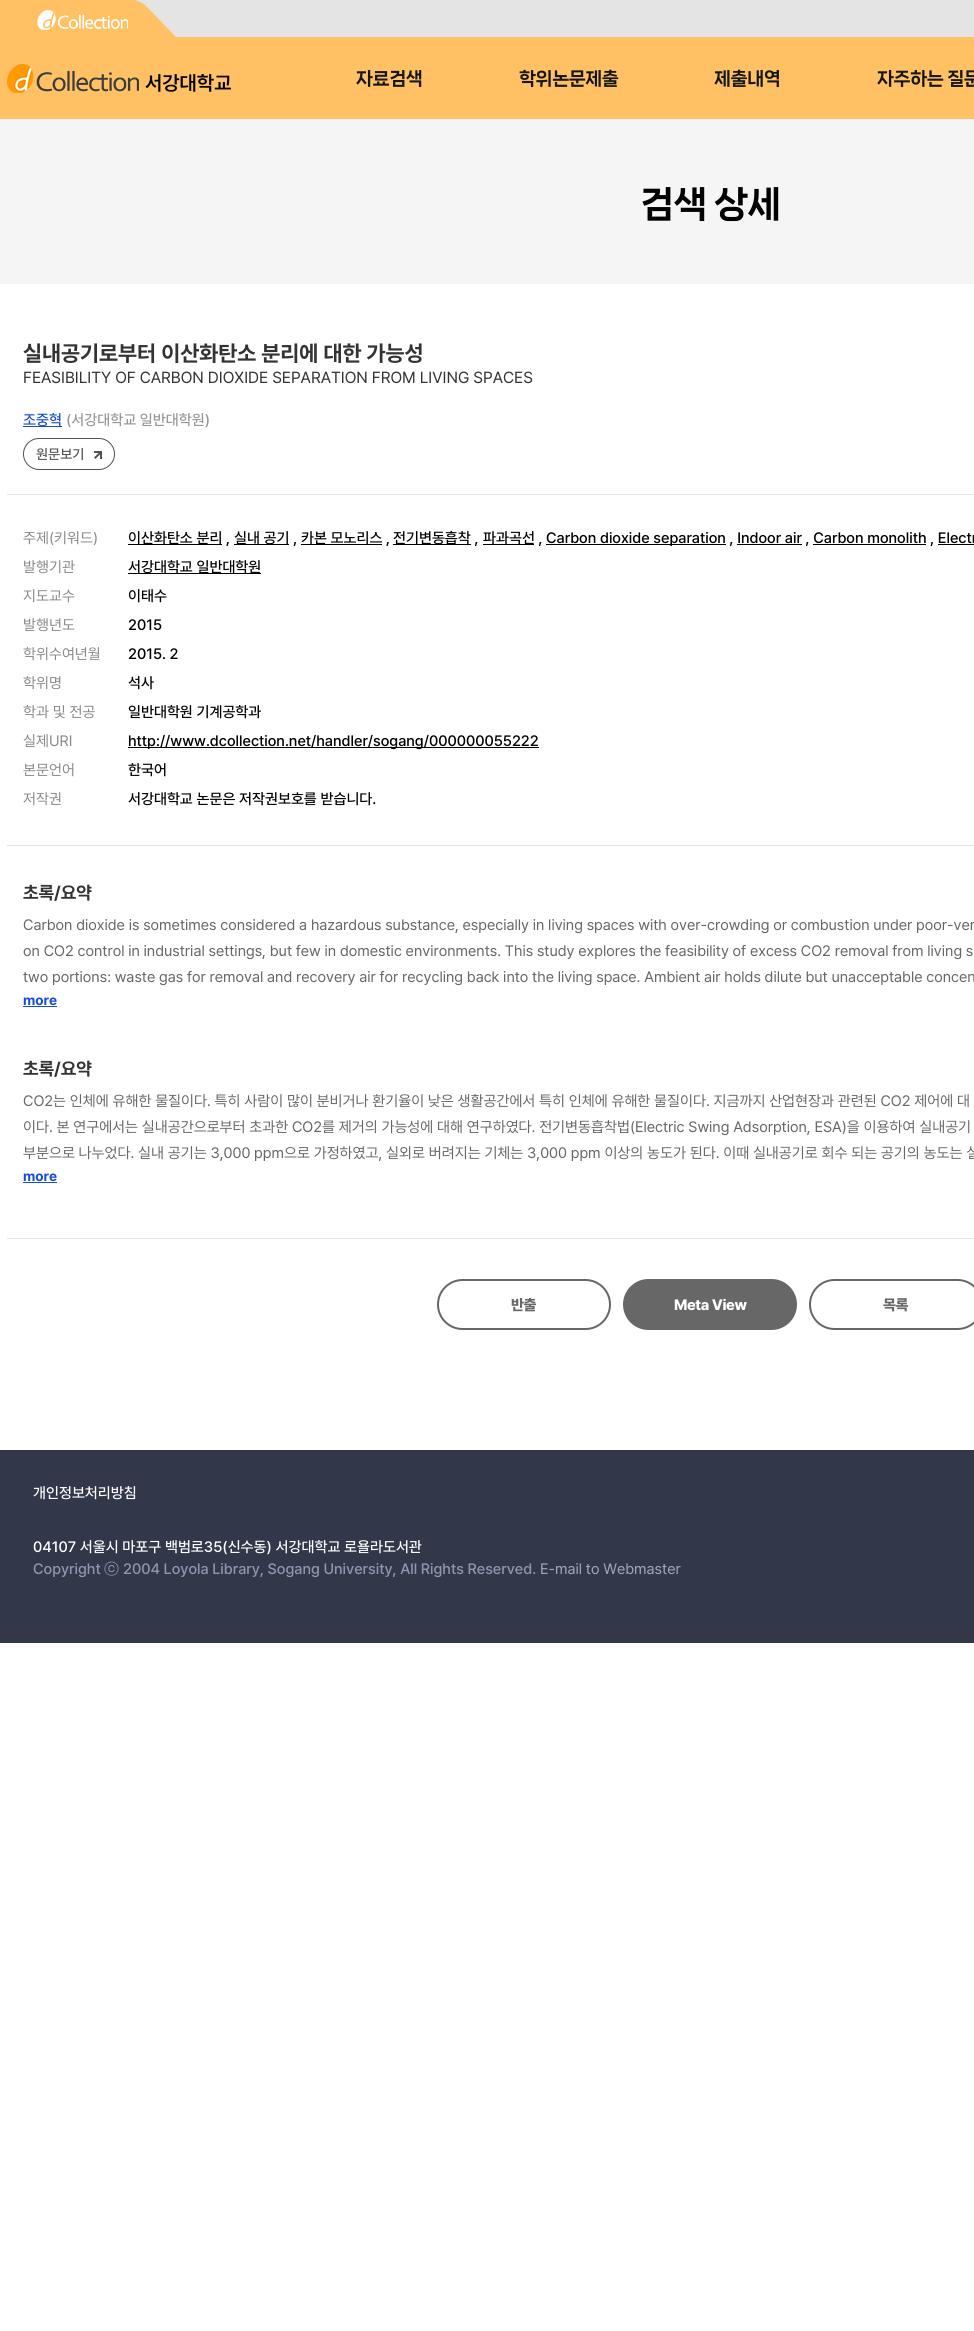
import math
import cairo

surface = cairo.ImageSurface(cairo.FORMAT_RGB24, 974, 2331)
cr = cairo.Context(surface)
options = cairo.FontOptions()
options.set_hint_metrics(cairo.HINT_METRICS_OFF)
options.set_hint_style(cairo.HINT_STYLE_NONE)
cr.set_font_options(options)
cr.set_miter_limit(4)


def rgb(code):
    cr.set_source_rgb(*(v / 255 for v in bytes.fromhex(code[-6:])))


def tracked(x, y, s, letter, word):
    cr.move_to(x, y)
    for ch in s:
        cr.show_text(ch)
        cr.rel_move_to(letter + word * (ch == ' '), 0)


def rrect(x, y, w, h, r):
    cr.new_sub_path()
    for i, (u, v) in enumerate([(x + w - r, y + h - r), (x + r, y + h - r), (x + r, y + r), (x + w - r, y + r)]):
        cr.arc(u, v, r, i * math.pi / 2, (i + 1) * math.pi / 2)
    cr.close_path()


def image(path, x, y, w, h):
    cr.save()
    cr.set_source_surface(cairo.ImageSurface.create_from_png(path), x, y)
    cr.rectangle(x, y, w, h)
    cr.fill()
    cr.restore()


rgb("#ffffff")
cr.paint()
rgb("#e4e4e4")
cr.rectangle(134, 0, 840, 37)
cr.fill()
rgb("#ffc163")
cr.rectangle(0, 11, 26, 26)
cr.fill()
cr.new_path()
cr.move_to(-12, 0)
cr.line_to(134, 0)
cr.curve_to(137, 0, 142, 3, 146, 6)
cr.line_to(176, 37)
cr.line_to(26, 37)
cr.close_path()
cr.fill()
image("img/1.png", 37, 10, 91, 20)
cr.rectangle(0, 37, 974, 82)
cr.fill()
image("img/2.png", 7, 64, 132, 29)
for x, y, w, h, color in [
    (0, 119, 974, 165, "#f5f5f5"),
    (7, 494, 967, 1, "#e3e3e3"),
    (23, 426, 39, 1, "#164bd3"),
]:
    rgb(color)
    cr.rectangle(x, y, w, h)
    cr.fill()
image("img/3.png", 94, 451, 8, 8)
rrect(23.5, 438.5, 91, 31, 15.5)
rgb("#525252")
cr.set_line_width(1)
cr.stroke()
for x, y, w, h, color in [
    (7, 845, 967, 1, "#e3e3e3"),
    (128, 544, 94, 1, "#000000"),
    (234, 544, 55, 1, "#000000"),
    (301, 544, 81, 1, "#000000"),
    (393, 544, 78, 1, "#000000"),
    (483, 544, 51, 1, "#000000"),
    (546, 544, 180, 1, "#000000"),
    (737, 544, 65, 1, "#000000"),
    (813, 544, 113, 1, "#000000"),
    (938, 544, 36, 1, "#000000"),
    (128, 573, 133, 1, "#000000"),
    (128, 747, 411, 1, "#000000"),
    (7, 1238, 967, 1, "#e3e3e3"),
    (23, 1006, 34, 1, "#164bd3"),
    (23, 1182, 34, 1, "#164bd3"),
]:
    rgb(color)
    cr.rectangle(x, y, w, h)
    cr.fill()
rrect(438, 1280, 172, 49, 24.5)
rgb("#676767")
cr.set_line_width(2)
cr.stroke()
rrect(624, 1280, 172, 49, 24.5)
cr.fill_preserve()
cr.stroke()
rrect(810, 1280, 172, 49, 24.5)
cr.stroke()
rgb("#32384a")
cr.rectangle(0, 1450, 974, 193)
cr.fill()
cr.select_font_face("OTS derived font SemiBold")
cr.set_font_size(20)
rgb("#000000")
cr.move_to(145, 90)
cr.show_text("서강대학교")
cr.select_font_face("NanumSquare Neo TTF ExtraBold")
cr.set_font_size(18)
rgb("#161616")
for x, y, s in [
    (356, 84, "자료검색"),
    (519, 84, "학위논문제출"),
    (714, 84, "제출내역"),
    (877, 84, "자주하는 질문"),
]:
    tracked(x, y, s, -0.5, 0)
cr.set_font_size(36)
rgb("#000000")
tracked(640, 215, "검색 상세", -1, 0)
cr.select_font_face("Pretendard", cairo.FONT_SLANT_NORMAL, cairo.FONT_WEIGHT_BOLD)
cr.set_font_size(22)
rgb("#333333")
cr.move_to(23, 361)
cr.show_text("실내공기로부터 이산화탄소 분리에 대한 가능성")
cr.select_font_face("OTS derived font")
cr.set_font_size(16)
cr.move_to(23, 383)
cr.show_text("FEASIBILITY OF CARBON DIOXIDE SEPARATION FROM LIVING SPACES")
cr.select_font_face("OTS derived font Medium")
cr.set_font_size(15)
rgb("#164bd3")
cr.move_to(23, 425)
cr.show_text("조중혁")
rgb("#979797")
cr.move_to(66, 425)
cr.show_text("(서강대학교 일반대학원)")
cr.set_font_size(14)
rgb("#525252")
cr.move_to(36, 459)
cr.show_text("원문보기")
cr.select_font_face("OTS derived font")
cr.set_font_size(15)
rgb("#888888")
cr.move_to(23, 543)
cr.show_text("주제(키워드)")
cr.select_font_face("OTS derived font Medium")
rgb("#000000")
for x, y, s in [
    (128, 543, "이산화탄소 분리 ,"),
    (234, 543, "실내 공기 ,"),
    (301, 543, "카본 모노리스 ,"),
    (393, 543, "전기변동흡착 ,"),
    (483, 543, "파과곡선 ,"),
    (546, 543, "Carbon dioxide separation , Indoor air , Carbon monolith , Electr"),
]:
    cr.move_to(x, y)
    cr.show_text(s)
cr.select_font_face("OTS derived font")
rgb("#888888")
cr.move_to(23, 572)
cr.show_text("발행기관")
cr.select_font_face("OTS derived font Medium")
rgb("#000000")
cr.move_to(128, 572)
cr.show_text("서강대학교 일반대학원")
cr.select_font_face("OTS derived font")
rgb("#888888")
cr.move_to(23, 601)
cr.show_text("지도교수")
cr.select_font_face("OTS derived font Medium")
rgb("#000000")
cr.move_to(128, 601)
cr.show_text("이태수")
cr.select_font_face("OTS derived font")
rgb("#888888")
cr.move_to(23, 630)
cr.show_text("발행년도")
cr.select_font_face("OTS derived font Medium")
rgb("#000000")
cr.move_to(128, 630)
cr.show_text("2015")
cr.select_font_face("OTS derived font")
rgb("#888888")
cr.move_to(23, 659)
cr.show_text("학위수여년월")
cr.select_font_face("OTS derived font Medium")
rgb("#000000")
cr.move_to(128, 659)
cr.show_text("2015. 2")
cr.select_font_face("OTS derived font")
rgb("#888888")
cr.move_to(23, 688)
cr.show_text("학위명")
cr.select_font_face("OTS derived font Medium")
rgb("#000000")
cr.move_to(128, 688)
cr.show_text("석사")
cr.select_font_face("OTS derived font")
rgb("#888888")
cr.move_to(23, 717)
cr.show_text("학과 및 전공")
cr.select_font_face("OTS derived font Medium")
rgb("#000000")
cr.move_to(128, 717)
cr.show_text("일반대학원 기계공학과")
cr.select_font_face("OTS derived font")
rgb("#888888")
cr.move_to(23, 746)
cr.show_text("실제URI")
cr.select_font_face("OTS derived font Medium")
rgb("#000000")
cr.move_to(128, 746)
cr.show_text("http://www.dcollection.net/handler/sogang/000000055222")
cr.select_font_face("OTS derived font")
rgb("#888888")
cr.move_to(23, 775)
cr.show_text("본문언어")
cr.select_font_face("OTS derived font Medium")
rgb("#000000")
cr.move_to(128, 775)
cr.show_text("한국어")
cr.select_font_face("OTS derived font")
rgb("#888888")
cr.move_to(23, 804)
cr.show_text("저작권")
cr.select_font_face("OTS derived font Medium")
rgb("#000000")
cr.move_to(128, 804)
cr.show_text("서강대학교 논문은 저작권보호를 받습니다.")
cr.select_font_face("Pretendard", cairo.FONT_SLANT_NORMAL, cairo.FONT_WEIGHT_BOLD)
cr.set_font_size(18)
rgb("#333333")
cr.move_to(23, 899)
cr.show_text("초록/요약")
cr.select_font_face("OTS derived font")
cr.set_font_size(15)
rgb("#676767")
for x, y, s in [
    (23, 930, "Carbon dioxide is sometimes considered a hazardous substance, especially in living spaces with over-crowding or combustion under poor-ven"),
    (23, 956, "on CO2 control in industrial settings, but few in domestic environments. This study explores the feasibility of excess CO2 removal from living s"),
    (23, 982, "two portions: waste gas for removal and recovery air for recycling back into the living space. Ambient air holds dilute but unacceptable concen"),
]:
    cr.move_to(x, y)
    cr.show_text(s)
cr.select_font_face("Pretendard", cairo.FONT_SLANT_NORMAL, cairo.FONT_WEIGHT_BOLD)
cr.set_font_size(14)
rgb("#164bd3")
cr.move_to(23, 1005)
cr.show_text("more")
cr.set_font_size(18)
rgb("#333333")
cr.move_to(23, 1075)
cr.show_text("초록/요약")
cr.select_font_face("OTS derived font")
cr.set_font_size(15)
rgb("#676767")
for x, y, s in [
    (23, 1106, "CO2는 인체에 유해한 물질이다. 특히 사람이 많이 분비거나 환기율이 낮은 생활공간에서 특히 인체에 유해한 물질이다. 지금까지 산업현장과 관련된 CO2 제어에 대"),
    (23, 1132, "이다. 본 연구에서는 실내공간으로부터 초과한 CO2를 제거의 가능성에 대해 연구하였다. 전기변동흡착법(Electric Swing Adsorption, ESA)을 이용하여 실내공기"),
    (23, 1158, "부분으로 나누었다. 실내 공기는 3,000 ppm으로 가정하였고, 실외로 버려지는 기체는 3,000 ppm 이상의 농도가 된다. 이때 실내공기로 회수 되는 공기의 농도는 실"),
]:
    cr.move_to(x, y)
    cr.show_text(s)
cr.select_font_face("Pretendard", cairo.FONT_SLANT_NORMAL, cairo.FONT_WEIGHT_BOLD)
cr.set_font_size(14)
rgb("#164bd3")
cr.move_to(23, 1181)
cr.show_text("more")
cr.select_font_face("Pretendard ExtraBold")
cr.set_font_size(15)
rgb("#676767")
tracked(511, 1310, "반출", -0.4, 0)
rgb("#ffffff")
tracked(674, 1310, "Meta View", -0.4, 0)
rgb("#676767")
tracked(883, 1310, "목록", -0.4, 0)
cr.select_font_face("OTS derived font Medium")
rgb("#ffffff")
cr.move_to(33, 1498)
cr.show_text("개인정보처리방침")
cr.move_to(33, 1552)
cr.show_text("04107 서울시 마포구 백범로35(신수동) 서강대학교 로욜라도서관")
rgb("#8e96ae")
cr.move_to(33, 1574)
cr.show_text("Copyright")
cr.select_font_face("WenQuanYi Zen Hei Medium")
cr.move_to(104, 1574)
cr.show_text("ⓒ")
cr.select_font_face("OTS derived font Medium")
cr.move_to(123, 1574)
cr.show_text("2004 Loyola Library, Sogang University, All Rights Reserved.")
cr.select_font_face("OTS derived font")
rgb("#a2a7b3")
cr.move_to(540, 1574)
cr.show_text("E-mail to Webmaster")
surface.write_to_png("page.png")
